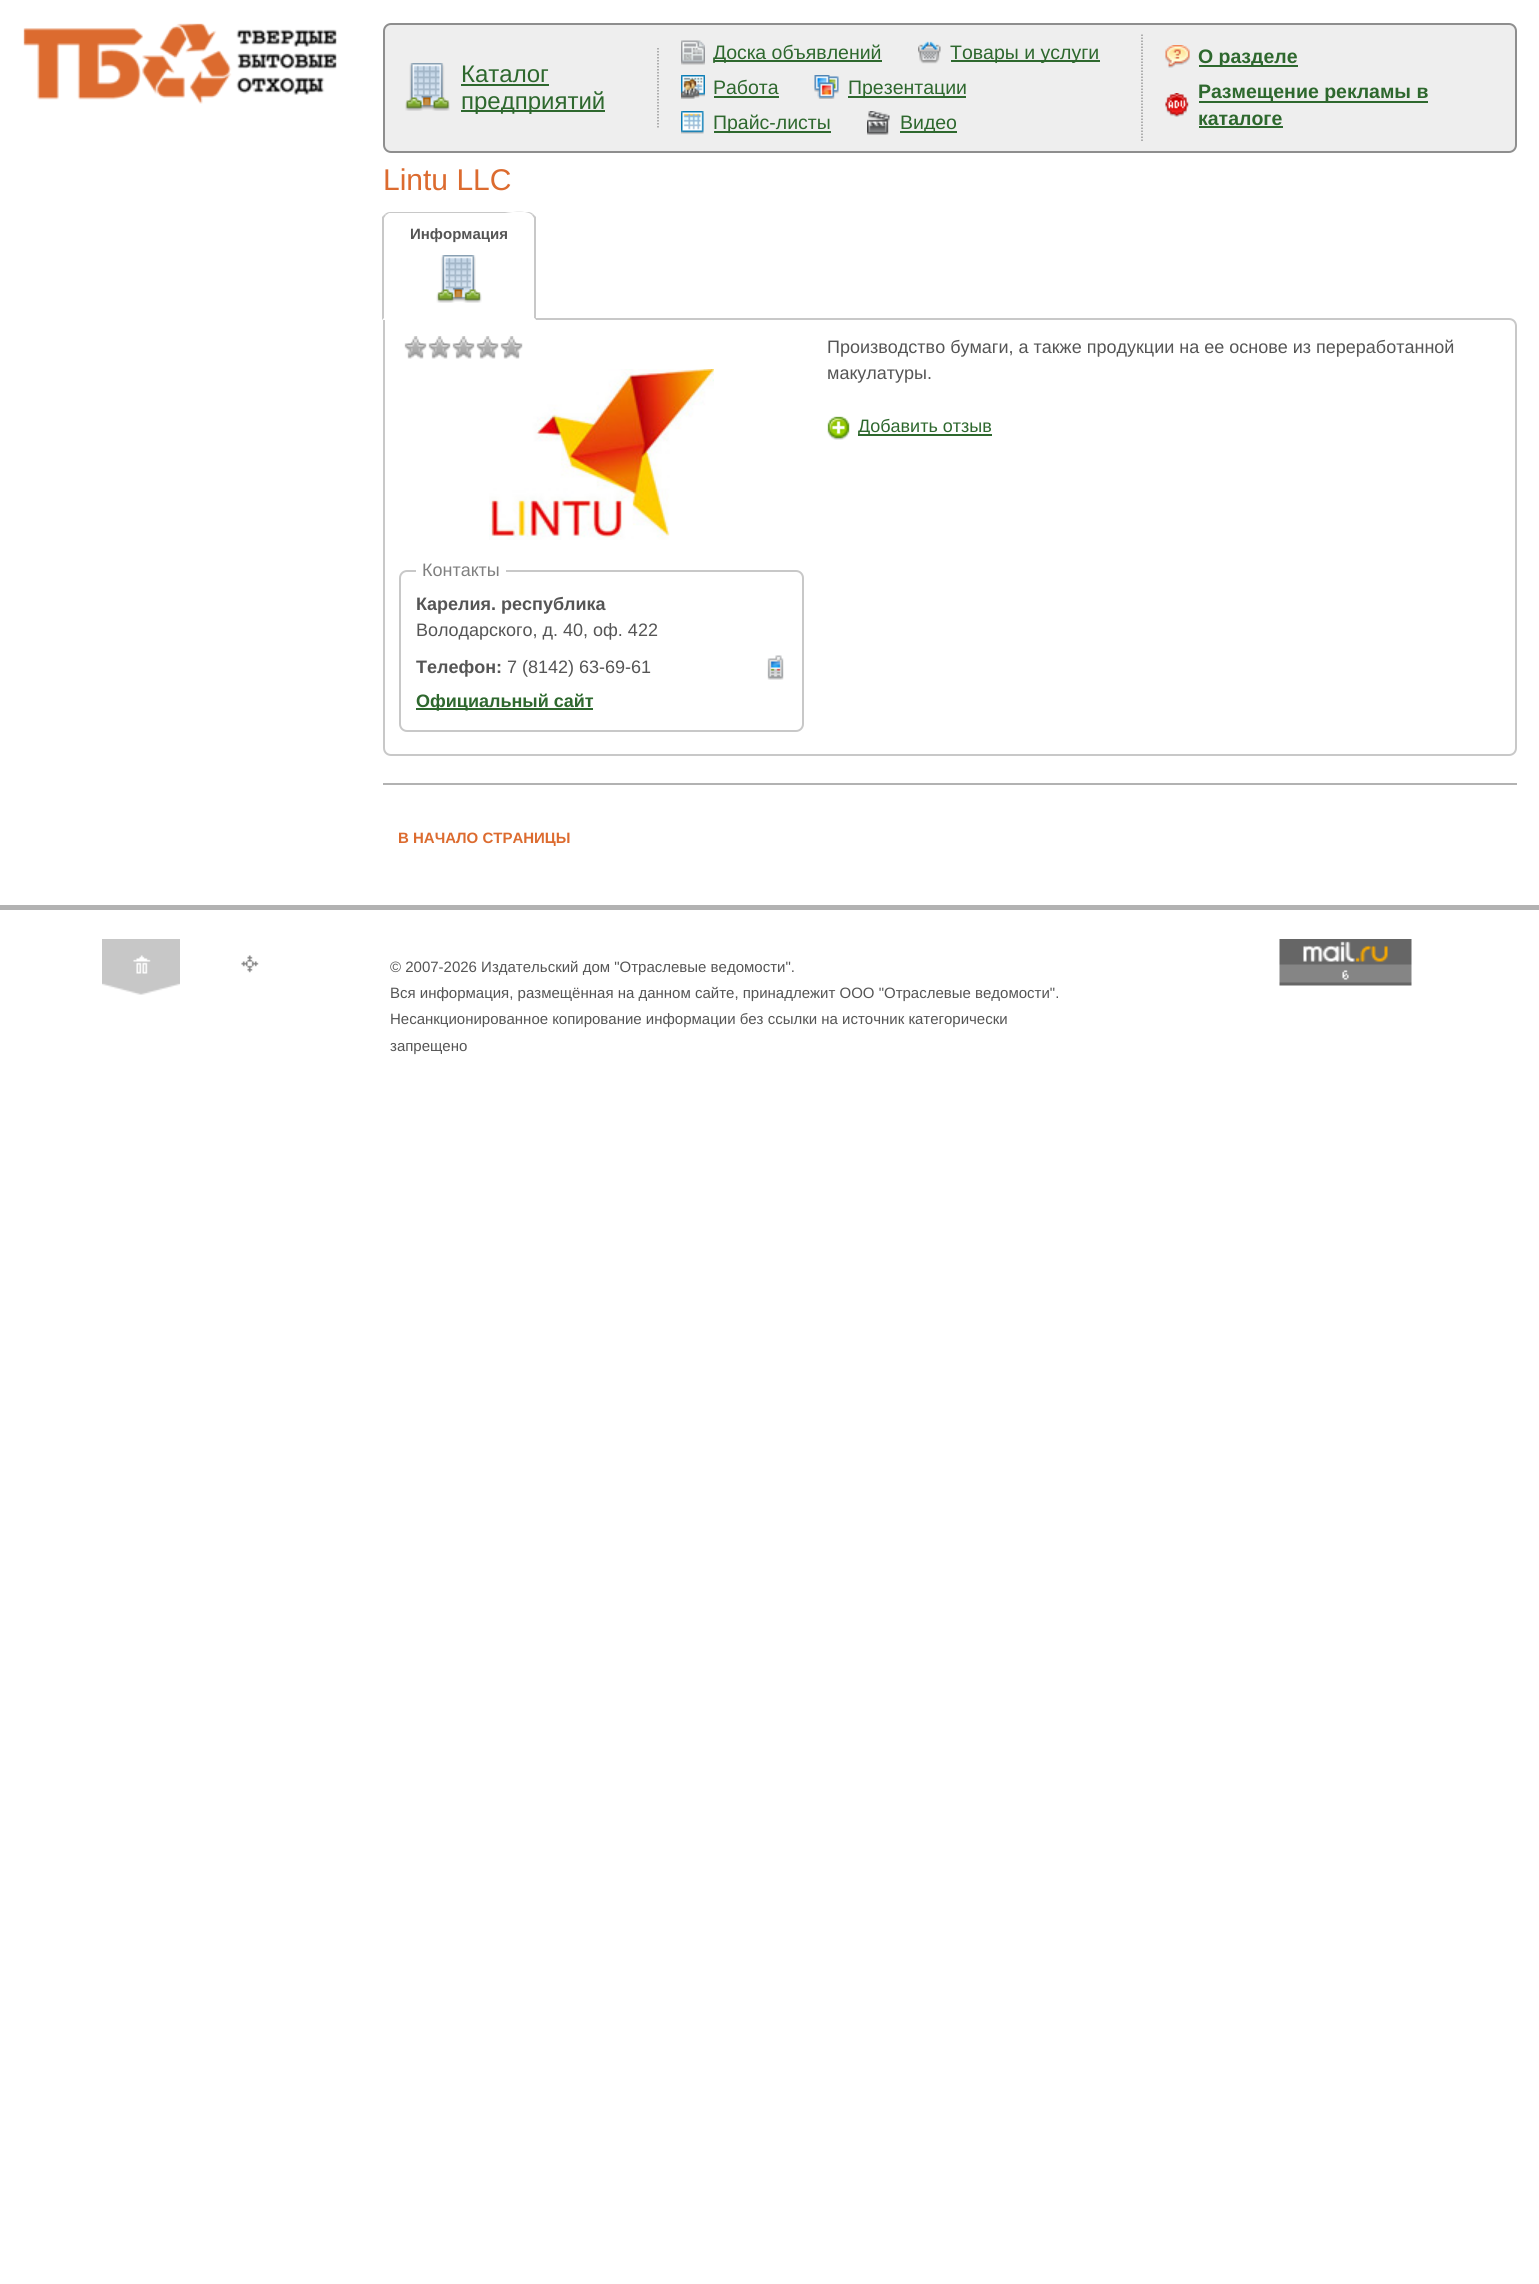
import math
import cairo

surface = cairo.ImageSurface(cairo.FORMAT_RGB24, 1539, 2284)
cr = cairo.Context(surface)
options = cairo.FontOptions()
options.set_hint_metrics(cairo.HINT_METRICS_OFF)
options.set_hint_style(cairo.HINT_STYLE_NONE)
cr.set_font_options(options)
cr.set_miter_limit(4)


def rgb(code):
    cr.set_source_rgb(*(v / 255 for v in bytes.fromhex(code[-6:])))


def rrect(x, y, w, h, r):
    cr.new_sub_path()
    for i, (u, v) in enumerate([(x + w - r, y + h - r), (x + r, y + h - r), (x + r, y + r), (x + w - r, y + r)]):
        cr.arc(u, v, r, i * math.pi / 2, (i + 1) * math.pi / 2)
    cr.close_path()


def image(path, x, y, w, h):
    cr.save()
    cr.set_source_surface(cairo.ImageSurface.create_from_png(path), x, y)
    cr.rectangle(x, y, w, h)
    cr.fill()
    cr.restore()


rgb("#ffffff")
cr.paint()
image("img/1.png", 23, 23, 314, 81)
rgb("#eeeeee")
rrect(384, 24, 1132, 128, 7)
cr.fill_preserve()
rgb("#8e8e8e")
cr.stroke()
image("img/2.png", 405, 63, 45, 48)
cr.new_path()
cr.move_to(658, 48)
cr.line_to(658, 127.5)
rgb("#999999")
cr.set_line_width(1.5)
cr.set_dash([1.5, 1.5])
cr.stroke()
rgb("#2e682e")
cr.rectangle(461, 84, 88, 2)
cr.fill()
cr.rectangle(461, 110, 144, 2)
cr.fill()
cr.new_path()
cr.move_to(1142, 34.5)
cr.line_to(1142, 141)
rgb("#999999")
cr.stroke()
image("img/3.png", 681, 40, 24, 25)
rgb("#2e682e")
cr.rectangle(714, 60, 168, 2)
cr.fill()
image("img/4.png", 918, 41, 23, 23)
cr.rectangle(951, 60, 149, 2)
cr.fill()
image("img/5.png", 681, 75, 24, 24)
cr.rectangle(714, 96, 65, 2)
cr.fill()
image("img/6.png", 814, 75, 25, 24)
cr.rectangle(848, 96, 118, 2)
cr.fill()
image("img/7.png", 681, 111, 23, 23)
cr.rectangle(714, 131, 117, 2)
cr.fill()
image("img/8.png", 867, 111, 23, 24)
cr.rectangle(900, 131, 57, 2)
cr.fill()
image("img/9.png", 1165, 45, 25, 23)
cr.rectangle(1199, 65, 99, 2)
cr.fill()
image("img/10.png", 1165, 93, 24, 24)
cr.rectangle(1199, 101, 229, 2)
cr.fill()
cr.rectangle(1199, 126, 84, 2)
cr.fill()
cr.new_path()
cr.move_to(384, 319)
cr.line_to(1509, 319)
cr.curve_to(1513, 319, 1516, 322, 1516, 326)
cr.line_to(1516, 748)
cr.curve_to(1516, 752, 1513, 755, 1509, 755)
cr.line_to(391, 755)
cr.curve_to(387, 755, 384, 752, 384, 748)
cr.close_path()
rgb("#c8c8c8")
cr.set_line_width(2)
cr.set_dash([])
cr.stroke()
rgb("#ffffff")
cr.new_path()
cr.move_to(391, 212)
cr.line_to(528, 212)
cr.curve_to(532.5, 212, 536, 215.5, 536, 220)
cr.line_to(536, 320)
cr.line_to(383, 320)
cr.line_to(383, 220)
cr.curve_to(383, 215.5, 386.5, 212, 391, 212)
cr.close_path()
cr.fill()
rgb("#c8c8c8")
cr.new_path()
cr.move_to(390, 212)
cr.curve_to(388, 212, 386, 213, 385, 214)
cr.line_to(386, 215)
cr.line_to(389, 213)
cr.line_to(505, 213)
cr.curve_to(505, 213, 527, 209, 532, 215)
cr.line_to(533, 214)
cr.curve_to(532, 213, 530, 212, 528, 212)
cr.close_path()
cr.fill()
cr.new_path()
cr.move_to(533, 214)
cr.line_to(536, 217)
cr.line_to(536, 320)
cr.line_to(534, 318)
cr.line_to(534, 218)
cr.line_to(532, 215)
cr.close_path()
cr.fill()
rgb("#ffffff")
cr.new_path()
cr.move_to(536, 320)
cr.line_to(534, 318)
cr.line_to(384, 318)
cr.line_to(382, 320)
cr.close_path()
cr.fill()
rgb("#c8c8c8")
cr.new_path()
cr.move_to(382, 320)
cr.line_to(384, 318)
cr.line_to(384, 218)
cr.line_to(386, 215)
cr.line_to(385, 214)
cr.line_to(382, 217)
cr.close_path()
cr.fill()
image("img/11.png", 436, 255, 46, 48)
image("img/12.png", 827, 416, 23, 24)
rgb("#2e682e")
cr.rectangle(858, 434, 134, 2)
cr.fill()
image("img/13.png", 404, 336, 23, 23)
image("img/13.png", 428, 336, 23, 23)
image("img/14.png", 452, 336, 23, 23)
image("img/14.png", 476, 336, 23, 23)
image("img/14.png", 500, 336, 23, 23)
image("img/15.png", 489, 369, 225, 171)
rrect(400, 571, 403, 160, 7)
rgb("#c8c8c8")
cr.stroke()
rgb("#ffffff")
cr.rectangle(416, 570, 90, 2)
cr.fill()
image("img/16.png", 767, 655, 17, 25)
for x, y, w, h, color in [
    (416, 708, 177, 2, "#2e682e"),
    (383, 783, 1134, 2, "#b2b2b2"),
    (0, 905, 1539, 5, "#b2b2b2"),
]:
    rgb(color)
    cr.rectangle(x, y, w, h)
    cr.fill()
image("img/17.png", 102, 939, 78, 56)
image("img/18.png", 241, 955, 18, 18)
image("img/19.png", 1279, 939, 133, 47)
cr.select_font_face("Liberation Sans")
cr.set_font_size(24)
rgb("#2e682e")
cr.move_to(461, 82)
cr.show_text("Каталог")
cr.move_to(461, 109)
cr.show_text("предприятий")
cr.set_font_size(19.5)
for x, y, s in [
    (713, 59, "Доска объявлений"),
    (950, 59, "Товары и услуги"),
    (713, 94, "Работа"),
    (848, 94, "Презентации"),
    (713, 129, "Прайс-листы"),
    (900, 129, "Видео"),
]:
    cr.move_to(x, y)
    cr.show_text(s)
cr.select_font_face("Liberation Sans", cairo.FONT_SLANT_NORMAL, cairo.FONT_WEIGHT_BOLD)
for x, y, s in [
    (1198, 63, "О разделе"),
    (1198, 98, "Размещение рекламы в"),
    (1198, 125, "каталоге"),
]:
    cr.move_to(x, y)
    cr.show_text(s)
cr.select_font_face("Liberation Sans")
cr.set_font_size(30)
rgb("#dc6b2f")
cr.move_to(383, 190)
cr.show_text("Lintu LLC")
cr.select_font_face("Liberation Sans", cairo.FONT_SLANT_NORMAL, cairo.FONT_WEIGHT_BOLD)
cr.set_font_size(15)
rgb("#555555")
cr.move_to(410, 239)
cr.show_text("Информация")
cr.select_font_face("Liberation Sans")
cr.set_font_size(18)
cr.move_to(827, 353)
cr.show_text("Производство бумаги, а также продукции на ее основе из переработанной")
cr.move_to(827, 379)
cr.show_text("макулатуры.")
rgb("#2e682e")
cr.move_to(858, 432)
cr.show_text("Добавить отзыв")
rgb("#808080")
cr.move_to(422, 576)
cr.show_text("Контакты")
cr.select_font_face("Liberation Sans", cairo.FONT_SLANT_NORMAL, cairo.FONT_WEIGHT_BOLD)
rgb("#555555")
cr.move_to(416, 610)
cr.show_text("Карелия. республика")
cr.select_font_face("Liberation Sans")
cr.move_to(416, 636)
cr.show_text("Володарского, д. 40, оф. 422")
cr.select_font_face("Liberation Sans", cairo.FONT_SLANT_NORMAL, cairo.FONT_WEIGHT_BOLD)
cr.move_to(416, 673)
cr.show_text("Телефон:")
cr.select_font_face("Liberation Sans")
cr.move_to(507, 673)
cr.show_text("7 (8142) 63-69-61")
cr.select_font_face("Liberation Sans", cairo.FONT_SLANT_NORMAL, cairo.FONT_WEIGHT_BOLD)
rgb("#2e682e")
cr.move_to(416, 707)
cr.show_text("Официальный сайт")
cr.set_font_size(15)
rgb("#dc6b2f")
cr.move_to(398, 843)
cr.show_text("В НАЧАЛО СТРАНИЦЫ")
cr.select_font_face("Liberation Sans")
rgb("#555555")
for x, y, s in [
    (390, 972, "© 2007-2026 Издательский дом \"Отраслевые ведомости\"."),
    (390, 998, "Вся информация, размещённая на данном сайте, принадлежит ООО \"Отраслевые ведомости\"."),
    (390, 1024, "Несанкционированное копирование информации без ссылки на источник категорически"),
    (390, 1051, "запрещено"),
]:
    cr.move_to(x, y)
    cr.show_text(s)
surface.write_to_png("page.png")
